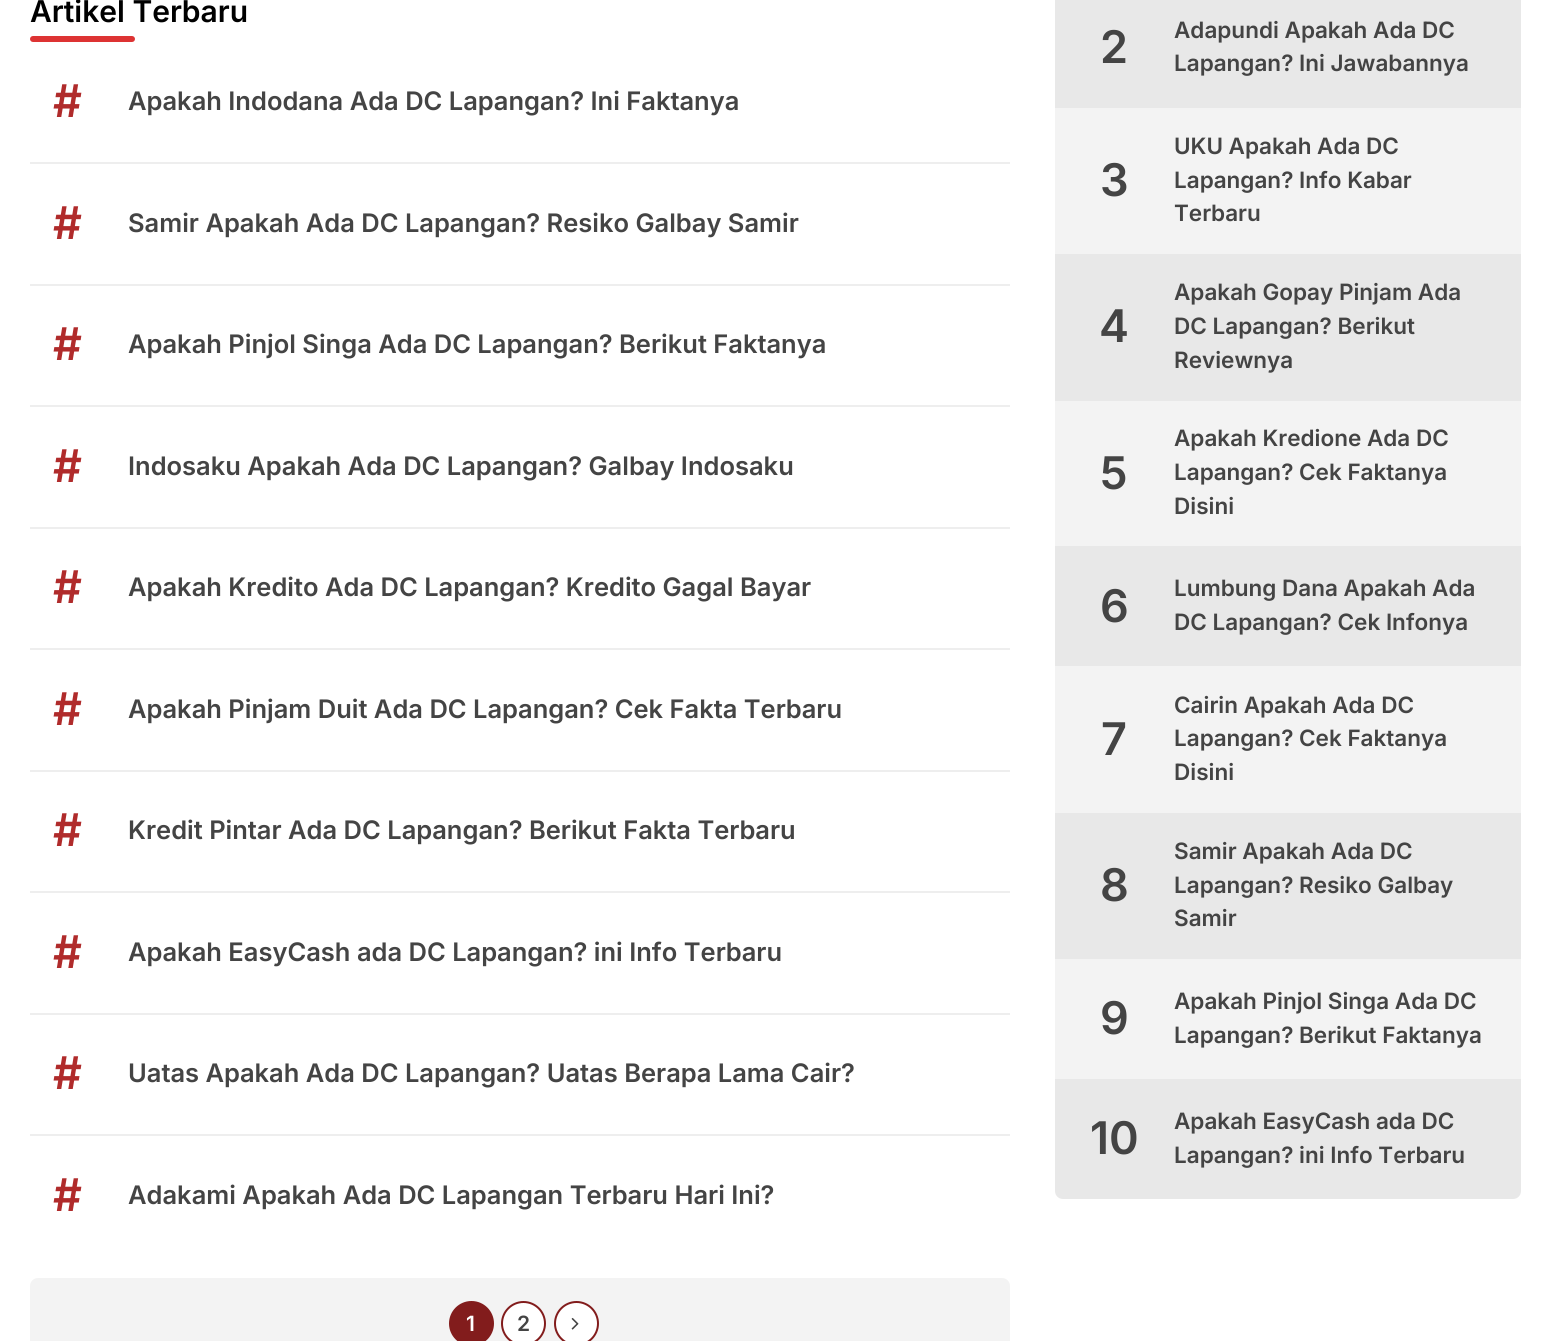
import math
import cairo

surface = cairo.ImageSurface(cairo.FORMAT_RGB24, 1551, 1341)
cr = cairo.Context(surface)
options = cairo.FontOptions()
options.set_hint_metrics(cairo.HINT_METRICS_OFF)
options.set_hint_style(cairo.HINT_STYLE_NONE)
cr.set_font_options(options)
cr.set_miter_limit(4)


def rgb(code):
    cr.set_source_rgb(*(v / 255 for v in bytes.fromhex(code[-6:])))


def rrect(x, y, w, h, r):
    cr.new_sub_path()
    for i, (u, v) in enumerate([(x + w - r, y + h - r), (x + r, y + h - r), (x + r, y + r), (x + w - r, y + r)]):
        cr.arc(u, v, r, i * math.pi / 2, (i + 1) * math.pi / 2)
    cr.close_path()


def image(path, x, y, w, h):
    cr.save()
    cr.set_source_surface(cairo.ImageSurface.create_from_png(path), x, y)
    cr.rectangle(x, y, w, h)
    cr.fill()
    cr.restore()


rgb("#ffffff")
cr.paint()
rgb("#dd3333")
rrect(30, 36, 105, 6, 3)
cr.fill()
for x, y, w, h, color in [
    (30, 162, 980, 2, "#eeeeee"),
    (30, 284, 980, 2, "#eeeeee"),
    (30, 405, 980, 2, "#eeeeee"),
    (30, 527, 980, 2, "#eeeeee"),
    (30, 648, 980, 2, "#eeeeee"),
    (30, 770, 980, 2, "#eeeeee"),
    (30, 891, 980, 2, "#eeeeee"),
    (30, 1013, 980, 2, "#eeeeee"),
    (30, 1134, 980, 2, "#eeeeee"),
]:
    rgb(color)
    cr.rectangle(x, y, w, h)
    cr.fill()
rgb("#f3f3f3")
rrect(30, 1278, 980, 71, 8)
cr.fill()
rgb("#821c1c")
cr.arc(471.5, 1323.5, 21.5, 0, 2 * math.pi)
cr.fill_preserve()
cr.stroke()
rgb("#ffffff")
cr.arc(523.5, 1323.5, 21.5, 0, 2 * math.pi)
cr.fill_preserve()
rgb("#821c1c")
cr.stroke()
rgb("#ffffff")
cr.arc(576.5, 1323.5, 21.5, 0, 2 * math.pi)
cr.fill_preserve()
rgb("#821c1c")
cr.stroke()
image("img/1.png", 571, 1317, 8, 13)
for x, y, w, h, color in [
    (1055, 0, 466, 108, "#e8e8e8"),
    (1055, 108, 466, 146, "#f3f3f3"),
    (1055, 254, 466, 147, "#e8e8e8"),
    (1055, 401, 466, 145, "#f3f3f3"),
    (1055, 546, 466, 120, "#e8e8e8"),
    (1055, 666, 466, 147, "#f3f3f3"),
    (1055, 813, 466, 146, "#e8e8e8"),
    (1055, 959, 466, 120, "#f3f3f3"),
]:
    rgb(color)
    cr.rectangle(x, y, w, h)
    cr.fill()
rgb("#e8e8e8")
cr.new_path()
cr.move_to(1055, 1079)
cr.line_to(1521, 1079)
cr.line_to(1521, 1191)
cr.curve_to(1521, 1195.5, 1517.5, 1199, 1513, 1199)
cr.line_to(1063, 1199)
cr.curve_to(1058.5, 1199, 1055, 1195.5, 1055, 1191)
cr.close_path()
cr.fill()
cr.select_font_face("Inter SemiBold")
cr.set_font_size(30)
rgb("#000000")
cr.move_to(30, 22)
cr.show_text("Artikel Terbaru")
cr.set_font_size(45)
rgb("#b02b2b")
cr.move_to(53, 117)
cr.show_text("#")
cr.set_font_size(25.5)
rgb("#444444")
cr.move_to(128, 110)
cr.show_text("Apakah Indodana Ada DC Lapangan? Ini Faktanya")
cr.set_font_size(45)
rgb("#b02b2b")
cr.move_to(53, 239)
cr.show_text("#")
cr.set_font_size(25.5)
rgb("#444444")
cr.move_to(128, 232)
cr.show_text("Samir Apakah Ada DC Lapangan? Resiko Galbay Samir")
cr.set_font_size(45)
rgb("#b02b2b")
cr.move_to(53, 360)
cr.show_text("#")
cr.set_font_size(25.5)
rgb("#444444")
cr.move_to(128, 353)
cr.show_text("Apakah Pinjol Singa Ada DC Lapangan? Berikut Faktanya")
cr.set_font_size(45)
rgb("#b02b2b")
cr.move_to(53, 482)
cr.show_text("#")
cr.set_font_size(25.5)
rgb("#444444")
cr.move_to(128, 475)
cr.show_text("Indosaku Apakah Ada DC Lapangan? Galbay Indosaku")
cr.set_font_size(45)
rgb("#b02b2b")
cr.move_to(53, 603)
cr.show_text("#")
cr.set_font_size(25.5)
rgb("#444444")
cr.move_to(128, 596)
cr.show_text("Apakah Kredito Ada DC Lapangan? Kredito Gagal Bayar")
cr.set_font_size(45)
rgb("#b02b2b")
cr.move_to(53, 725)
cr.show_text("#")
cr.set_font_size(25.5)
rgb("#444444")
cr.move_to(128, 718)
cr.show_text("Apakah Pinjam Duit Ada DC Lapangan? Cek Fakta Terbaru")
cr.set_font_size(45)
rgb("#b02b2b")
cr.move_to(53, 846)
cr.show_text("#")
cr.set_font_size(25.5)
rgb("#444444")
cr.move_to(128, 839)
cr.show_text("Kredit Pintar Ada DC Lapangan? Berikut Fakta Terbaru")
cr.set_font_size(45)
rgb("#b02b2b")
cr.move_to(53, 968)
cr.show_text("#")
cr.set_font_size(25.5)
rgb("#444444")
cr.move_to(128, 961)
cr.show_text("Apakah EasyCash ada DC Lapangan? ini Info Terbaru")
cr.set_font_size(45)
rgb("#b02b2b")
cr.move_to(53, 1089)
cr.show_text("#")
cr.set_font_size(25.5)
rgb("#444444")
cr.move_to(128, 1082)
cr.show_text("Uatas Apakah Ada DC Lapangan? Uatas Berapa Lama Cair?")
cr.set_font_size(45)
rgb("#b02b2b")
cr.move_to(53, 1211)
cr.show_text("#")
cr.set_font_size(25.5)
rgb("#444444")
cr.move_to(128, 1204)
cr.show_text("Adakami Apakah Ada DC Lapangan Terbaru Hari Ini?")
cr.set_font_size(21)
rgb("#ffffff")
cr.move_to(466, 1331)
cr.show_text("1")
rgb("#444444")
cr.move_to(517, 1331)
cr.show_text("2")
cr.set_font_size(45)
cr.move_to(1100, 63)
cr.show_text("2")
cr.set_font_size(22.5)
cr.move_to(1174, 38)
cr.show_text("Adapundi Apakah Ada DC")
cr.move_to(1174, 71)
cr.show_text("Lapangan? Ini Jawabannya")
cr.set_font_size(45)
cr.move_to(1100, 196)
cr.show_text("3")
cr.set_font_size(22.5)
for x, y, s in [
    (1174, 154, "UKU Apakah Ada DC"),
    (1174, 188, "Lapangan? Info Kabar"),
    (1174, 221, "Terbaru"),
]:
    cr.move_to(x, y)
    cr.show_text(s)
cr.set_font_size(45)
cr.move_to(1099, 342)
cr.show_text("4")
cr.set_font_size(22.5)
for x, y, s in [
    (1174, 300, "Apakah Gopay Pinjam Ada"),
    (1174, 334, "DC Lapangan? Berikut"),
    (1174, 368, "Reviewnya"),
]:
    cr.move_to(x, y)
    cr.show_text(s)
cr.set_font_size(45)
cr.move_to(1100, 489)
cr.show_text("5")
cr.set_font_size(22.5)
for x, y, s in [
    (1174, 446, "Apakah Kredione Ada DC"),
    (1174, 480, "Lapangan? Cek Faktanya"),
    (1174, 514, "Disini"),
]:
    cr.move_to(x, y)
    cr.show_text(s)
cr.set_font_size(45)
cr.move_to(1100, 622)
cr.show_text("6")
cr.set_font_size(22.5)
cr.move_to(1174, 596)
cr.show_text("Lumbung Dana Apakah Ada")
cr.move_to(1174, 630)
cr.show_text("DC Lapangan? Cek Infonya")
cr.set_font_size(45)
cr.move_to(1101, 755)
cr.show_text("7")
cr.set_font_size(22.5)
for x, y, s in [
    (1174, 713, "Cairin Apakah Ada DC"),
    (1174, 746, "Lapangan? Cek Faktanya"),
    (1174, 780, "Disini"),
]:
    cr.move_to(x, y)
    cr.show_text(s)
cr.set_font_size(45)
cr.move_to(1100, 901)
cr.show_text("8")
cr.set_font_size(22.5)
for x, y, s in [
    (1174, 859, "Samir Apakah Ada DC"),
    (1174, 893, "Lapangan? Resiko Galbay"),
    (1174, 926, "Samir"),
]:
    cr.move_to(x, y)
    cr.show_text(s)
cr.set_font_size(45)
cr.move_to(1100, 1034)
cr.show_text("9")
cr.set_font_size(22.5)
cr.move_to(1174, 1009)
cr.show_text("Apakah Pinjol Singa Ada DC")
cr.move_to(1174, 1043)
cr.show_text("Lapangan? Berikut Faktanya")
cr.set_font_size(45)
cr.move_to(1090, 1154)
cr.show_text("10")
cr.set_font_size(22.5)
cr.move_to(1174, 1129)
cr.show_text("Apakah EasyCash ada DC")
cr.move_to(1174, 1163)
cr.show_text("Lapangan? ini Info Terbaru")
surface.write_to_png("page.png")
